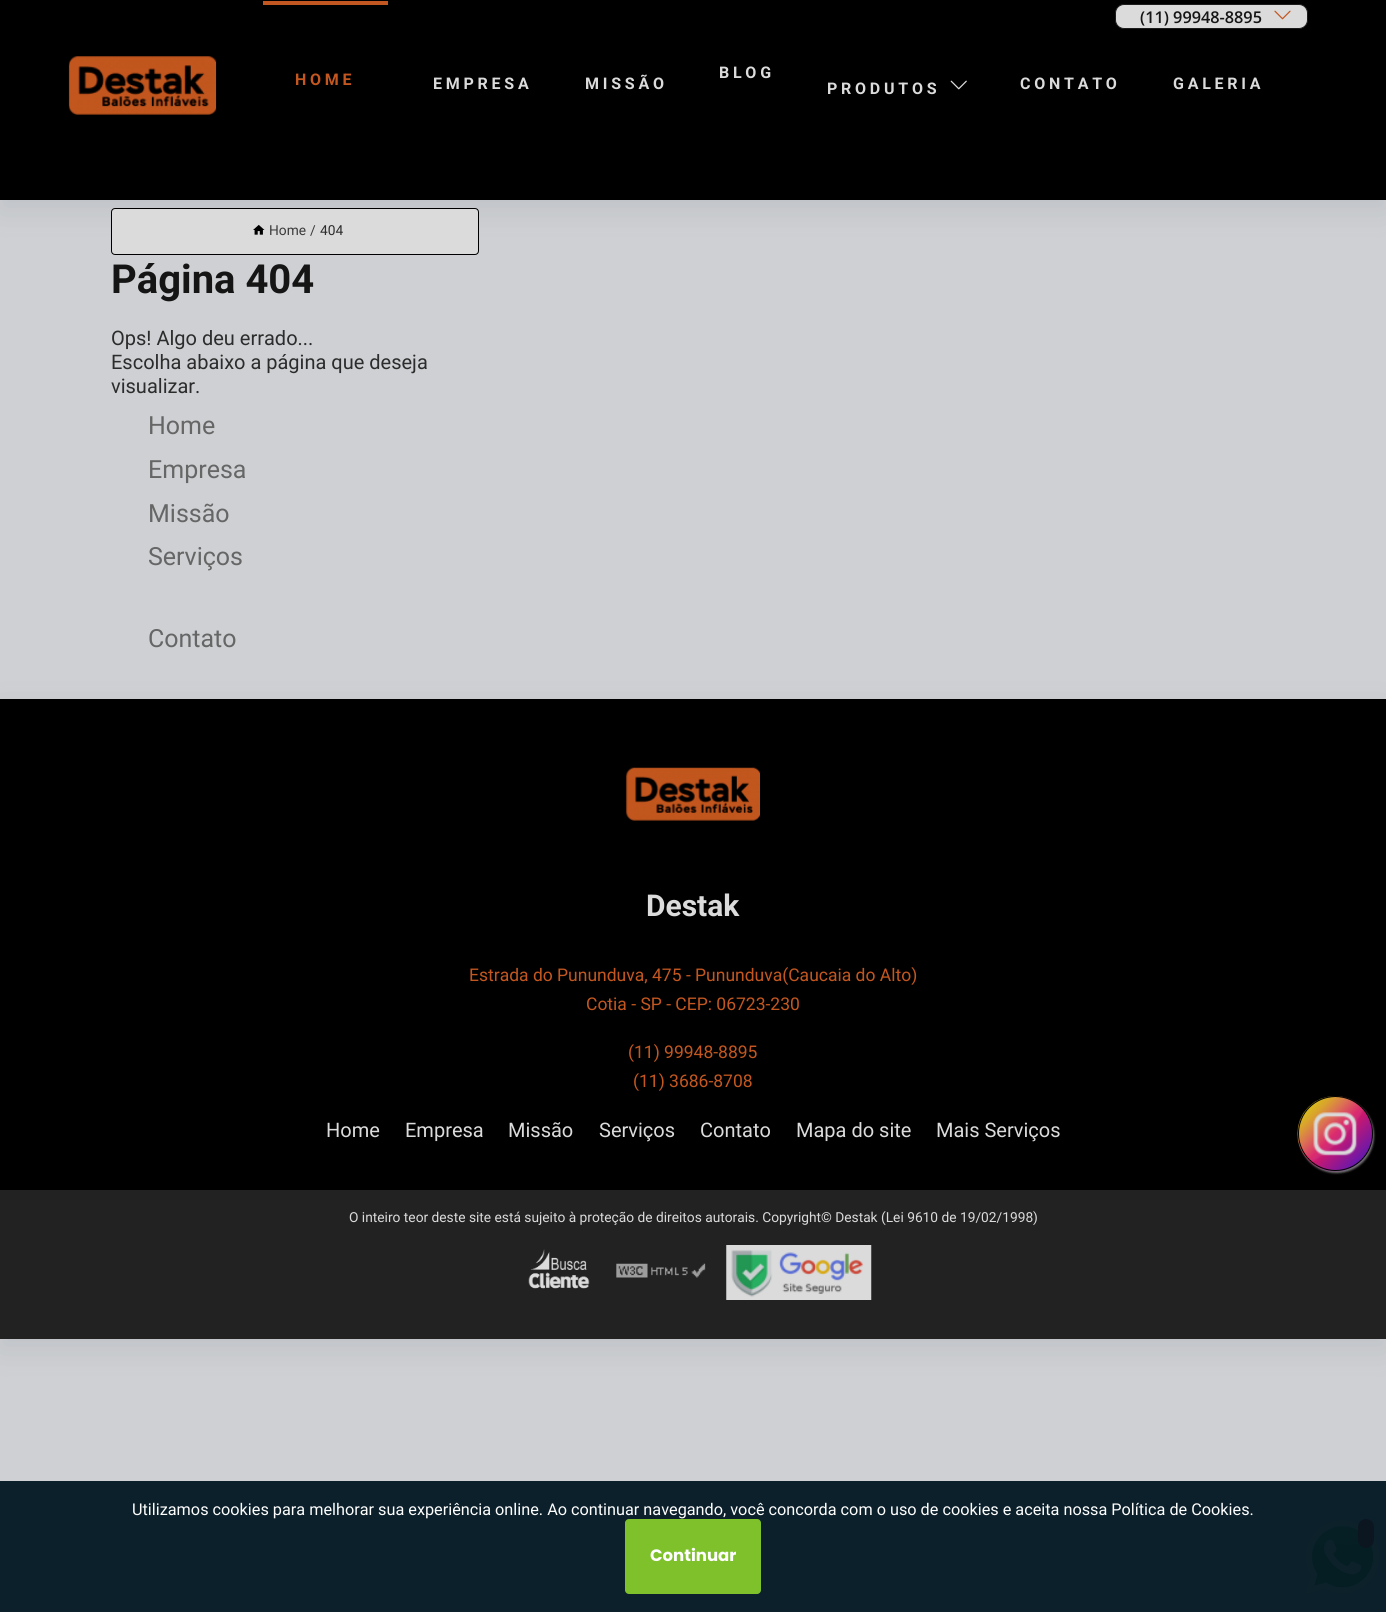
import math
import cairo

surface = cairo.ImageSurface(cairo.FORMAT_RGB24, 1386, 1612)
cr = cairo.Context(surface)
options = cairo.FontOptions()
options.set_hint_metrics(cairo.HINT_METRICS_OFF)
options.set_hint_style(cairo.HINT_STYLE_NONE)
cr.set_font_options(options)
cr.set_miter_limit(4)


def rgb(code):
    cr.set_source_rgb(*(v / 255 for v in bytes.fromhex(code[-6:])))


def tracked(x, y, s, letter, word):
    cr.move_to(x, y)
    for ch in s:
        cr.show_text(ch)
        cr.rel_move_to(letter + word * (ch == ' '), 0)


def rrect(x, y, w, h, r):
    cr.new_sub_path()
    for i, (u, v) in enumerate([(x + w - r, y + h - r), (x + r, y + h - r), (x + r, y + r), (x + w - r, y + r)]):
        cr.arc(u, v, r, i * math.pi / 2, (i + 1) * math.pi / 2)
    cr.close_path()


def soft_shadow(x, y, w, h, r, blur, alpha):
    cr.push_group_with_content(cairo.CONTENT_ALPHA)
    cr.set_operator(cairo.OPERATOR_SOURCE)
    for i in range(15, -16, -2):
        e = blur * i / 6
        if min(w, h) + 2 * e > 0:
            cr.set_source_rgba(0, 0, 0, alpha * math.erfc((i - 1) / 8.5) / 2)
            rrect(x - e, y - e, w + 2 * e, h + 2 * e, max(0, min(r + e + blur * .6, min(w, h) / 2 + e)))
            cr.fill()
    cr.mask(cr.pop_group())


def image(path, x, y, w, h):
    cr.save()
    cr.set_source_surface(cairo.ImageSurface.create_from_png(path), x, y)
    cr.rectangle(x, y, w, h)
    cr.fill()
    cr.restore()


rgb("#ced0d3")
cr.paint()
rgb("#0c202b")
cr.rectangle(0, 1481, 1386, 131)
cr.fill()
rgb("#80878e")
soft_shadow(0, 10, 1386, 200, 0, 15, 0.2)
rgb("#000000")
cr.rectangle(0, 0, 1386, 200)
cr.fill()
rgb("#dbdbdb")
rrect(1115.5, 4.5, 192, 24, 8.5)
cr.fill_preserve()
rgb("#1c1c1c")
cr.set_line_width(1)
cr.stroke()
image("img/1.png", 1274, 10, 17, 10)
image("img/2.png", 68, 56, 149, 59)
rgb("#c25722")
cr.rectangle(263, 1, 125, 4)
cr.fill()
image("img/3.png", 950, 80, 17, 10)
rgb("#dbdbdb")
rrect(111.5, 208.5, 367, 46, 3.5)
cr.fill_preserve()
rgb("#000000")
cr.stroke()
image("img/4.png", 253, 224, 12, 11)
rgb("#80878e")
soft_shadow(0, 709, 1386, 640, 0, 15, 0.2)
rgb("#000000")
cr.rectangle(0, 699, 1386, 491)
cr.fill()
image("img/5.png", 626, 767, 134, 54)
rgb("#222222")
cr.rectangle(0, 1190, 1386, 149)
cr.fill()
image("img/6.png", 528, 1249, 62, 40)
image("img/7.png", 616, 1263, 90, 15)
image("img/8.png", 726, 1245, 146, 55)
image("img/9.png", 1305, 1520, 75, 75)
rgb("#0b1621")
rrect(1358, 1519, 16, 29, 8)
cr.fill()
rgb("#757575")
soft_shadow(1299, 1098, 75, 75, 37.5, 1, 1)
image("img/10.png", 1297, 1096, 76, 76)
cr.arc(1335.5, 1133.5, 37, 0, 2 * math.pi)
rgb("#000000")
cr.stroke()
rgb("#7ec12b")
rrect(625, 1519, 136, 75, 4)
cr.fill()
cr.select_font_face("Open Sans SemiBold")
cr.set_font_size(16.25)
rgb("#151515")
cr.move_to(1140, 23)
cr.show_text("(11) 99948-8895")
cr.select_font_face("Roboto", cairo.FONT_SLANT_NORMAL, cairo.FONT_WEIGHT_BOLD)
cr.set_font_size(16)
rgb("#c3571f")
tracked(295, 85, "HOME", 3.75, 0)
rgb("#dbdbdb")
for x, y, s in [
    (433, 89, "EMPRESA"),
    (585, 89, "MISSÃO"),
    (719, 78, "BLOG"),
    (827, 94, "PRODUTOS"),
    (1020, 89, "CONTATO"),
    (1173, 89, "GALERIA"),
]:
    tracked(x, y, s, 3.75, 0)
cr.select_font_face("Roboto")
cr.set_font_size(13.75)
rgb("#3a3a3a")
cr.move_to(269, 235)
cr.show_text("Home")
cr.move_to(310, 235)
cr.show_text("/")
rgb("#2c2c2c")
cr.move_to(320, 235)
cr.show_text("404")
cr.select_font_face("Roboto", cairo.FONT_SLANT_NORMAL, cairo.FONT_WEIGHT_BOLD)
cr.set_font_size(40)
rgb("#151515")
cr.move_to(111, 293)
cr.show_text("Página 404")
cr.select_font_face("Roboto")
cr.set_font_size(20)
rgb("#2c2c2c")
for x, y, s in [
    (111, 345, "Ops! Algo deu errado..."),
    (111, 369, "Escolha abaixo a página que deseja"),
    (111, 393, "visualizar."),
]:
    cr.move_to(x, y)
    cr.show_text(s)
cr.set_font_size(25)
rgb("#666666")
for x, y, s in [
    (148, 434, "Home"),
    (148, 478, "Empresa"),
    (148, 522, "Missão"),
    (148, 565, "Serviços"),
    (148, 647, "Contato"),
]:
    cr.move_to(x, y)
    cr.show_text(s)
cr.select_font_face("Roboto", cairo.FONT_SLANT_NORMAL, cairo.FONT_WEIGHT_BOLD)
cr.set_font_size(30)
rgb("#dbdbdb")
cr.move_to(646, 916)
cr.show_text("Destak")
cr.select_font_face("Roboto")
cr.set_font_size(17.5)
rgb("#c3571f")
for x, y, s in [
    (469, 981, "Estrada do Pununduva, 475 - Pununduva(Caucaia do Alto)"),
    (586, 1010, "Cotia - SP - CEP: 06723-230"),
    (628, 1058, "(11) 99948-8895"),
    (633, 1087, "(11) 3686-8708"),
]:
    cr.move_to(x, y)
    cr.show_text(s)
cr.set_font_size(20)
rgb("#dbdbdb")
for x, y, s in [
    (326, 1137, "Home"),
    (405, 1137, "Empresa"),
    (508, 1137, "Missão"),
    (599, 1137, "Serviços"),
    (700, 1137, "Contato"),
    (796, 1137, "Mapa do site"),
    (936, 1137, "Mais Serviços"),
]:
    cr.move_to(x, y)
    cr.show_text(s)
cr.set_font_size(13.75)
cr.move_to(349, 1222)
cr.show_text("O inteiro teor deste site está sujeito à proteção de direitos autorais. Copyright© Destak (Lei 9610 de 19/02/1998)")
cr.set_font_size(16.25)
rgb("#fefefe")
cr.move_to(132, 1515)
cr.show_text("Utilizamos cookies para melhorar sua experiência online. Ao continuar navegando, você concorda com o uso de cookies e aceita nossa Política de Cookies.")
cr.select_font_face("Poppins", cairo.FONT_SLANT_NORMAL, cairo.FONT_WEIGHT_BOLD)
cr.set_font_size(16.5)
cr.move_to(650, 1561)
cr.show_text("Continuar")
surface.write_to_png("page.png")
